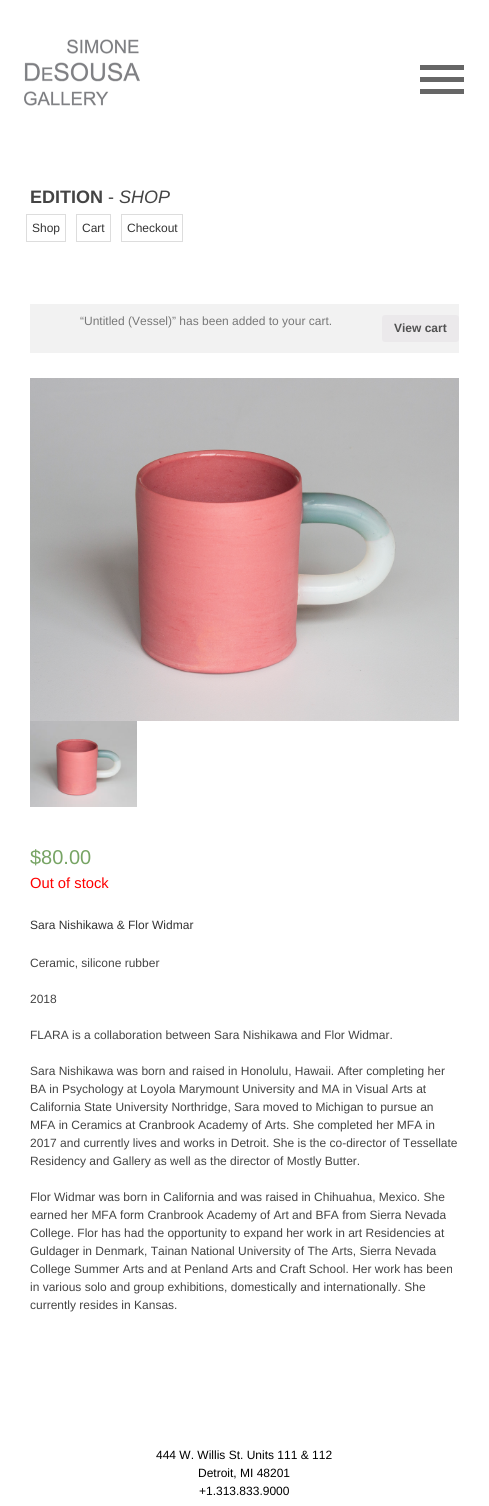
import math
import cairo

surface = cairo.ImageSurface(cairo.FORMAT_RGB24, 489, 1506)
cr = cairo.Context(surface)
options = cairo.FontOptions()
options.set_hint_metrics(cairo.HINT_METRICS_OFF)
options.set_hint_style(cairo.HINT_STYLE_NONE)
cr.set_font_options(options)
cr.set_miter_limit(4)


def rgb(code):
    cr.set_source_rgb(*(v / 255 for v in bytes.fromhex(code[-6:])))


def rrect(x, y, w, h, r):
    cr.new_sub_path()
    for i, (u, v) in enumerate([(x + w - r, y + h - r), (x + r, y + h - r), (x + r, y + r), (x + w - r, y + r)]):
        cr.arc(u, v, r, i * math.pi / 2, (i + 1) * math.pi / 2)
    cr.close_path()


def image(path, x, y, w, h):
    cr.save()
    cr.set_source_surface(cairo.ImageSurface.create_from_png(path), x, y)
    cr.rectangle(x, y, w, h)
    cr.fill()
    cr.restore()


rgb("#ffffff")
cr.paint()
image("img/1.png", 24, 39, 116, 67)
for x, y, w, h, color in [
    (420, 65, 44, 5, "#666666"),
    (420, 77, 44, 5, "#666666"),
    (420, 89, 44, 5, "#666666"),
]:
    rgb(color)
    cr.rectangle(x, y, w, h)
    cr.fill()
cr.rectangle(26.5, 214.5, 39, 27)
rgb("#dddddd")
cr.set_line_width(1)
cr.stroke()
cr.rectangle(76.5, 214.5, 34, 27)
cr.stroke()
cr.rectangle(121.5, 214.5, 61, 27)
cr.stroke()
rgb("#f2f2f2")
cr.rectangle(30, 304, 429, 49)
cr.fill()
rgb("#ebe9eb")
rrect(382, 315, 77, 27, 3)
cr.fill()
image("img/2.png", 30, 378, 429, 343)
image("img/3.png", 30, 721, 107, 86)
cr.select_font_face("Liberation Sans", cairo.FONT_SLANT_NORMAL, cairo.FONT_WEIGHT_BOLD)
cr.set_font_size(18)
rgb("#444444")
cr.move_to(30, 203)
cr.show_text("EDITION")
cr.select_font_face("Liberation Sans")
cr.move_to(108, 203)
cr.show_text("-")
cr.select_font_face("Liberation Sans", cairo.FONT_SLANT_ITALIC)
cr.move_to(119, 203)
cr.show_text("SHOP")
cr.select_font_face("Liberation Sans")
cr.set_font_size(12)
rgb("#333333")
for x, y, s in [
    (32, 232, "Shop"),
    (82, 232, "Cart"),
    (127, 232, "Checkout"),
]:
    cr.move_to(x, y)
    cr.show_text(s)
rgb("#777777")
cr.move_to(80, 325)
cr.show_text("“Untitled (Vessel)” has been added to your cart.")
cr.select_font_face("Liberation Sans", cairo.FONT_SLANT_NORMAL, cairo.FONT_WEIGHT_BOLD)
rgb("#515151")
cr.move_to(394, 332)
cr.show_text("View cart")
cr.select_font_face("Liberation Sans")
cr.set_font_size(20)
rgb("#77a464")
cr.move_to(30, 864)
cr.show_text("$80.00")
cr.set_font_size(14.75)
rgb("#ff0000")
cr.move_to(30, 888)
cr.show_text("Out of stock")
cr.set_font_size(12)
rgb("#333333")
cr.move_to(30, 929)
cr.show_text("Sara Nishikawa & Flor Widmar")
rgb("#444444")
for x, y, s in [
    (30, 967, "Ceramic, silicone rubber"),
    (30, 1003, "2018"),
    (30, 1039, "FLARA is a collaboration between Sara Nishikawa and Flor Widmar."),
    (30, 1075, "Sara Nishikawa was born and raised in Honolulu, Hawaii. After completing her"),
    (30, 1093, "BA in Psychology at Loyola Marymount University and MA in Visual Arts at"),
    (30, 1111, "California State University Northridge, Sara moved to Michigan to pursue an"),
    (30, 1129, "MFA in Ceramics at Cranbrook Academy of Arts. She completed her MFA in"),
    (30, 1147, "2017 and currently lives and works in Detroit. She is the co-director of Tessellate"),
    (30, 1165, "Residency and Gallery as well as the director of Mostly Butter."),
    (30, 1201, "Flor Widmar was born in California and was raised in Chihuahua, Mexico. She"),
    (30, 1219, "earned her MFA form Cranbrook Academy of Art and BFA from Sierra Nevada"),
    (30, 1237, "College. Flor has had the opportunity to expand her work in art Residencies at"),
    (30, 1255, "Guldager in Denmark, Tainan National University of The Arts, Sierra Nevada"),
    (30, 1273, "College Summer Arts and at Penland Arts and Craft School. Her work has been"),
    (30, 1291, "in various solo and group exhibitions, domestically and internationally. She"),
    (30, 1309, "currently resides in Kansas."),
]:
    cr.move_to(x, y)
    cr.show_text(s)
rgb("#000000")
for x, y, s in [
    (156, 1459, "444 W. Willis St. Units 111 & 112"),
    (198, 1477, "Detroit, MI 48201"),
    (199, 1495, "+1.313.833.9000"),
]:
    cr.move_to(x, y)
    cr.show_text(s)
surface.write_to_png("page.png")
